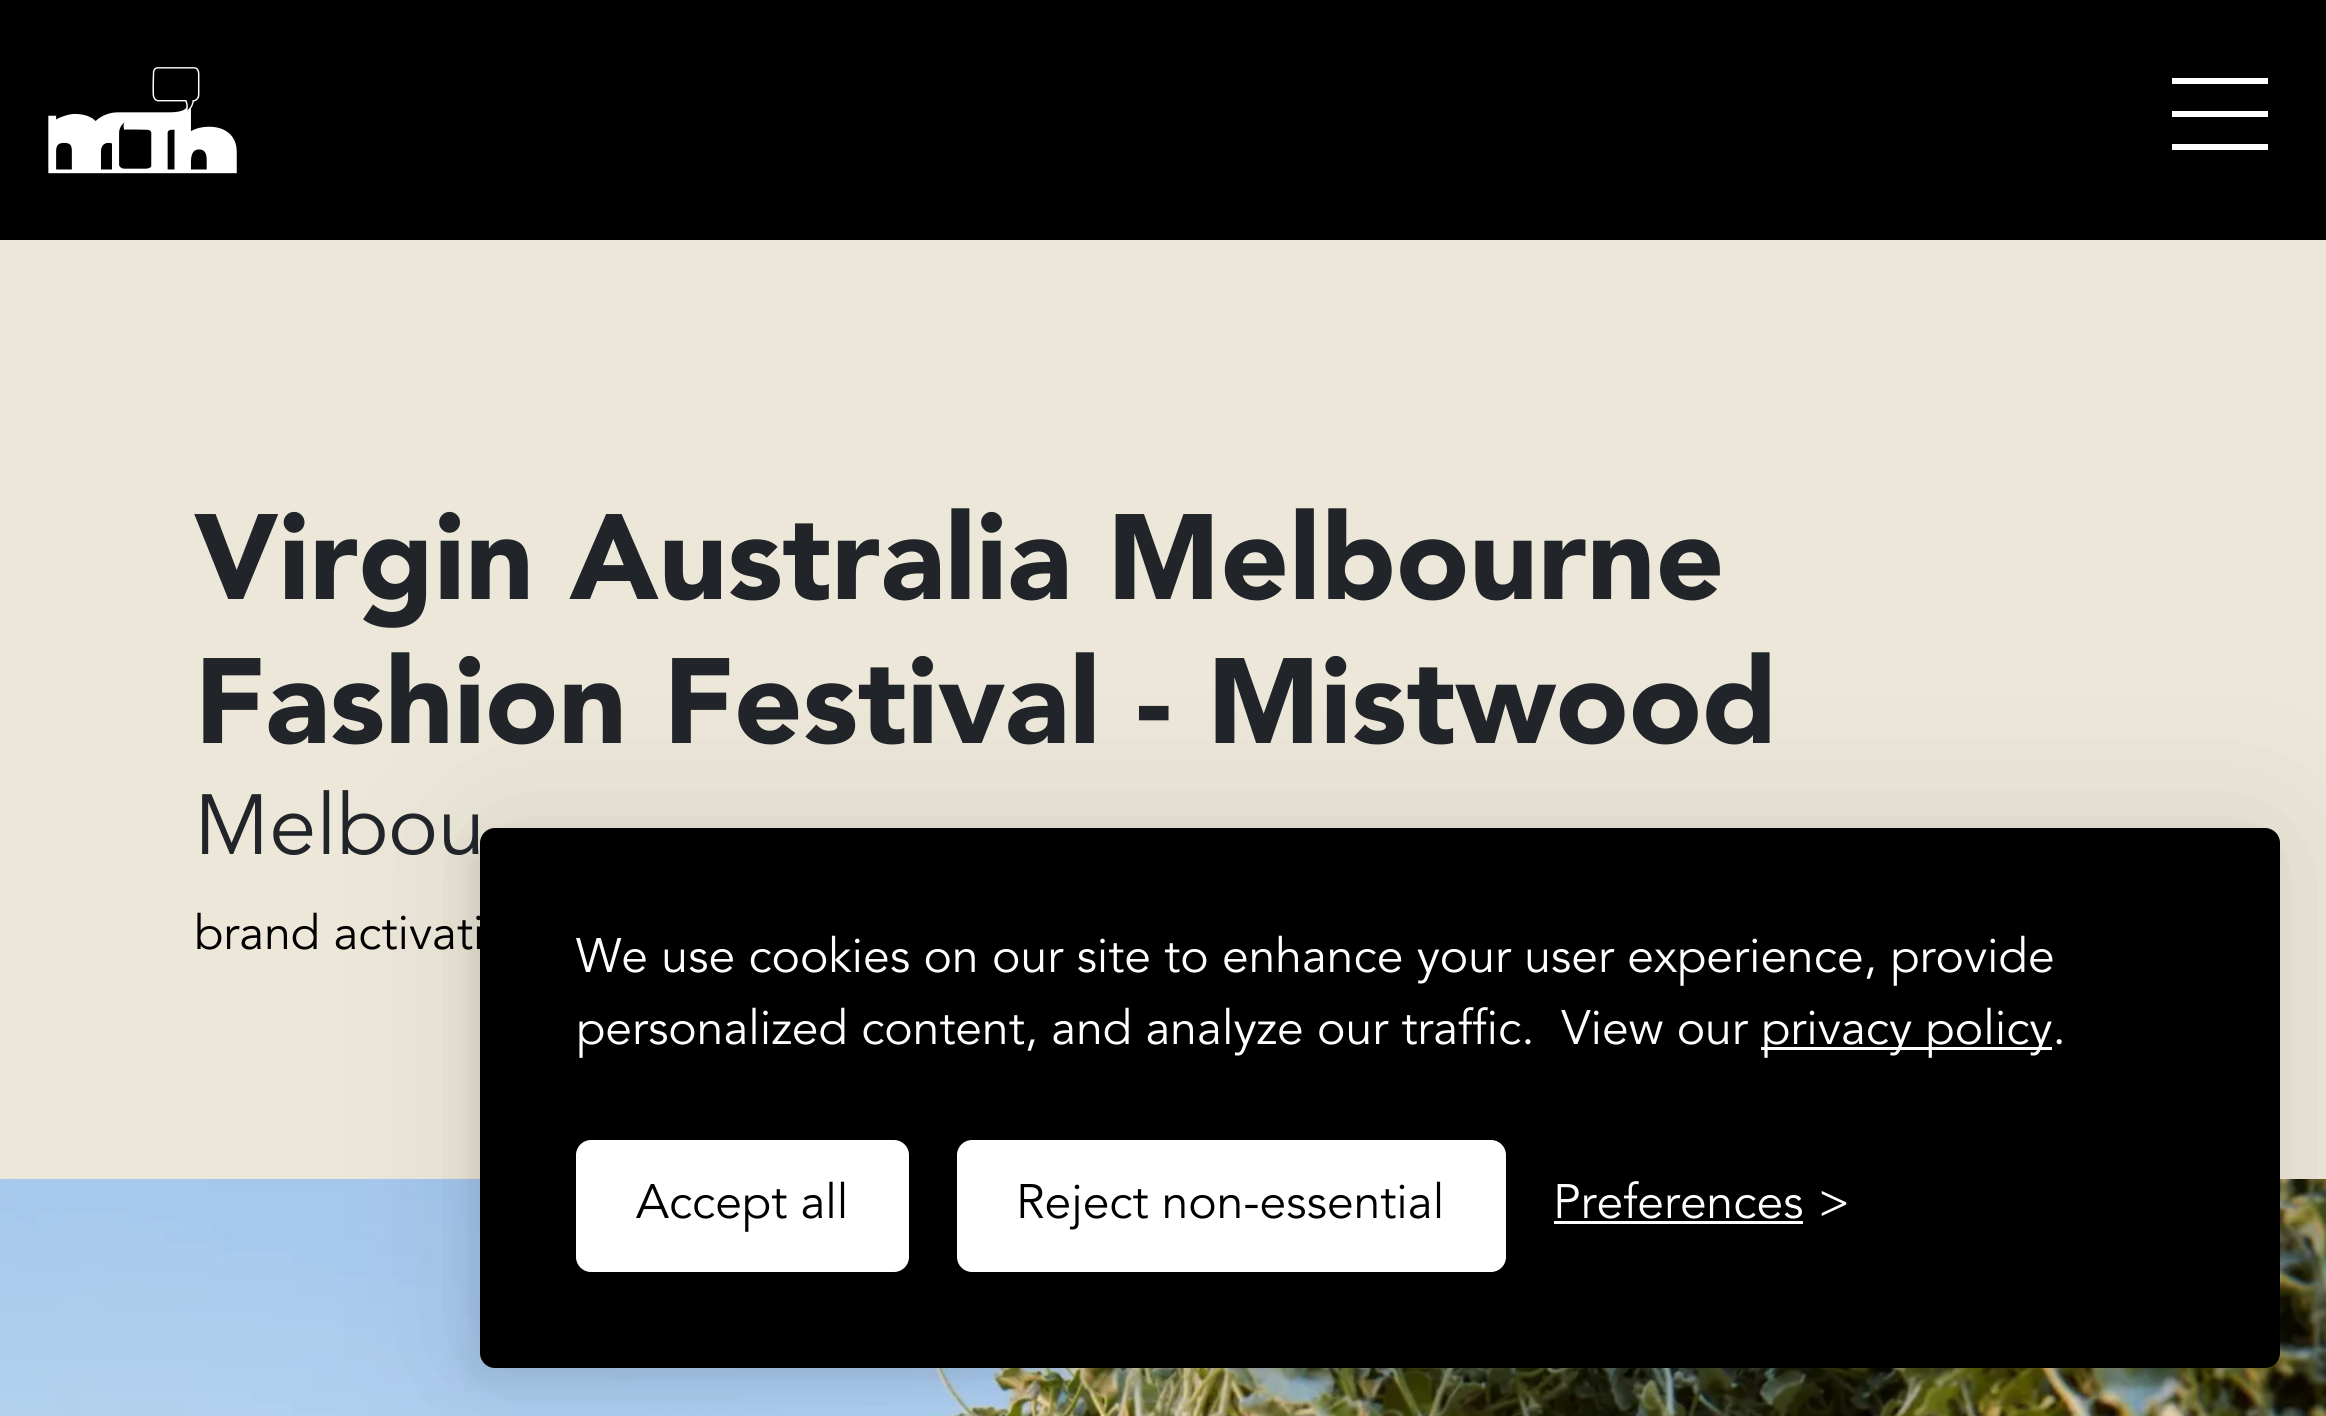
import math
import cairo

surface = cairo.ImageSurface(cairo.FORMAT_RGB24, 2326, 1416)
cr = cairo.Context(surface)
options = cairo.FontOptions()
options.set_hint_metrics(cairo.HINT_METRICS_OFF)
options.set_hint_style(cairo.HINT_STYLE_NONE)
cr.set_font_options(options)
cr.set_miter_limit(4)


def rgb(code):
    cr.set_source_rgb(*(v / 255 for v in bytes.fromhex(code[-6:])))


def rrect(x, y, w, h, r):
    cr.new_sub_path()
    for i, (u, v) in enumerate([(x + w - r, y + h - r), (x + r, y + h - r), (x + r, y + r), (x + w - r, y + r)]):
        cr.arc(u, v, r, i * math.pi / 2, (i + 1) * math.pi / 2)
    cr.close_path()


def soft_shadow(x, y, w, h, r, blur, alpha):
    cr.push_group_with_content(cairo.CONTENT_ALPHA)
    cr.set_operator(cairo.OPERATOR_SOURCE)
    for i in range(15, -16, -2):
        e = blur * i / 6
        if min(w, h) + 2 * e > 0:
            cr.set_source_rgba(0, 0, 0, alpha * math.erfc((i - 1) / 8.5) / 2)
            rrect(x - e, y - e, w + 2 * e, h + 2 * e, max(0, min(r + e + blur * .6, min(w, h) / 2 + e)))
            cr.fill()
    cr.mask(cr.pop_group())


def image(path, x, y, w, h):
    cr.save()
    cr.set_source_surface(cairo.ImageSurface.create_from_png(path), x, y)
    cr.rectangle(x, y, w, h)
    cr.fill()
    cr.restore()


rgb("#ece7d9")
cr.paint()
rgb("#000000")
cr.rectangle(0, 0, 2326, 240)
cr.fill()
image("img/1.png", 48, 67, 189, 107)
for x, y, w, h, color in [
    (2172, 78, 96, 6, "#ffffff"),
    (2172, 111, 96, 6, "#ffffff"),
    (2172, 144, 96, 6, "#ffffff"),
]:
    rgb(color)
    cr.rectangle(x, y, w, h)
    cr.fill()
image("img/2.png", 0, 1179, 2326, 237)
rgb("#000000")
soft_shadow(480, 828, 1800, 540, 15, 75, 0.1)
soft_shadow(465, 843, 1800, 540, 15, 15, 0.07)
rgb("#000000")
rrect(480, 828, 1800, 540, 15)
cr.fill()
rgb("#ffffff")
cr.rectangle(1761, 1047, 291, 3)
cr.fill()
rrect(576, 1140, 333, 132, 15)
cr.fill()
rrect(957, 1140, 549, 132, 15)
cr.fill()
cr.rectangle(1554, 1221, 249, 3)
cr.fill()
cr.select_font_face("Avenir Black")
cr.set_font_size(120)
rgb("#212529")
cr.move_to(194, 599)
cr.show_text("Virgin Australia Melbourne")
cr.move_to(194, 743)
cr.show_text("Fashion Festival - Mistwood")
cr.select_font_face("Avenir")
cr.set_font_size(84.5)
cr.move_to(194, 854)
cr.show_text("Melbou")
cr.set_font_size(48)
rgb("#000000")
cr.move_to(194, 949)
cr.show_text("brand activati")
rgb("#ffffff")
for x, y, s in [
    (576, 972, "We use cookies on our site to enhance your user experience, provide"),
    (576, 1044, "personalized content, and analyze our traffic.  View our"),
    (1761, 1044, "privacy policy."),
]:
    cr.move_to(x, y)
    cr.show_text(s)
rgb("#000000")
cr.move_to(636, 1218)
cr.show_text("Accept all")
cr.move_to(1016, 1218)
cr.show_text("Reject non-essential")
rgb("#ffffff")
cr.move_to(1553, 1218)
cr.show_text("Preferences")
cr.move_to(1818, 1218)
cr.show_text(">")
surface.write_to_png("page.png")
